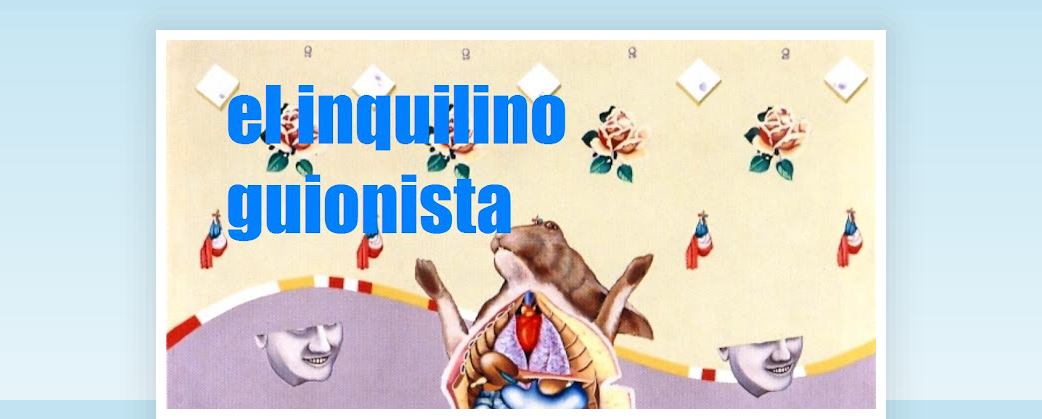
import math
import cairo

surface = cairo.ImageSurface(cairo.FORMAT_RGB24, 1042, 419)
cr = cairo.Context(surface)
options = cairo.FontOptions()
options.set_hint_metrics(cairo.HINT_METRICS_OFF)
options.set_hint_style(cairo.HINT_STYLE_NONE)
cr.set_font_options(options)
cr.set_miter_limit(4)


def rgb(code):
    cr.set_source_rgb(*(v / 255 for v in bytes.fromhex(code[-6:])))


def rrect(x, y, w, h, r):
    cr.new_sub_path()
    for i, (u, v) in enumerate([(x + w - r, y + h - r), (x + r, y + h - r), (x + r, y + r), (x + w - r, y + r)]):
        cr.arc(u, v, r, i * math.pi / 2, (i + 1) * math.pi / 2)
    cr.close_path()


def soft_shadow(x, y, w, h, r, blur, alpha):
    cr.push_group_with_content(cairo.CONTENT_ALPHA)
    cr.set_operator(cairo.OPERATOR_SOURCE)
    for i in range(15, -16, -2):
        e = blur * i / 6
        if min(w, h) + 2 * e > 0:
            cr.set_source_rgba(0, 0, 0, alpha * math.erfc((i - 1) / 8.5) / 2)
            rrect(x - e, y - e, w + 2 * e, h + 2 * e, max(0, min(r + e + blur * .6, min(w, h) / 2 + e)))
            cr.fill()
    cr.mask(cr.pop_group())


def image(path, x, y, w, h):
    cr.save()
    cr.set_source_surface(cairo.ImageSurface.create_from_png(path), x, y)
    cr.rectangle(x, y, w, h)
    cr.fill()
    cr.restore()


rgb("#c2e4f2")
cr.paint()
image("img/2.png", 0, 10, 1042, 390)
rgb("#000000")
soft_shadow(156, 30, 730, 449, 0, 20, 0.15)
rgb("#ffffff")
cr.rectangle(156, 30, 730, 389)
cr.fill()
image("img/1.png", 166, 40, 710, 369)
surface.write_to_png("page.png")
